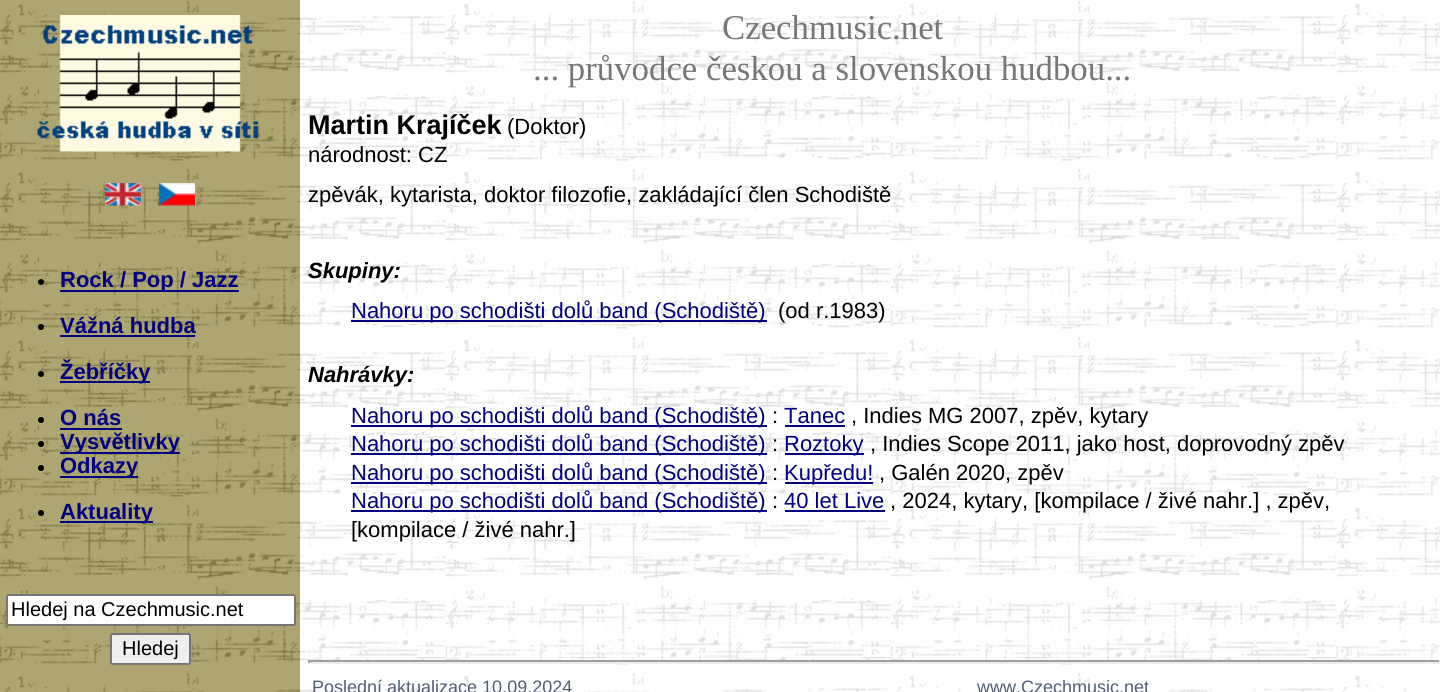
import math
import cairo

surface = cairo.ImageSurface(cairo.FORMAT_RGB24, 1440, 692)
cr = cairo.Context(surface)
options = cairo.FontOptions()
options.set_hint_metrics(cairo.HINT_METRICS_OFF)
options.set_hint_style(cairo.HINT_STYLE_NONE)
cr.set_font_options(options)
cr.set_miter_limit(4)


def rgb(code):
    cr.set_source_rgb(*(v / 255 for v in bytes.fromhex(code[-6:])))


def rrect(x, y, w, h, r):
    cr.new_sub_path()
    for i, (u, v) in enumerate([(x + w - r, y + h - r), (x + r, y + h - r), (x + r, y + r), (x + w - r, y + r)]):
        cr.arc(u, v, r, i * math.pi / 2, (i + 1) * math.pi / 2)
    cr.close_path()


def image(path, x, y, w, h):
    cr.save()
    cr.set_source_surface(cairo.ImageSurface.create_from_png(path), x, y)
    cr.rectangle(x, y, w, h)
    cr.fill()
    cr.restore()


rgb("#ffffff")
cr.paint()
image("img/1.png", 300, 1, 1140, 691)
image("img/2.png", 0, 0, 300, 692)
image("img/3.png", 37, 15, 222, 137)
image("img/4.png", 105, 183, 36, 23)
image("img/5.png", 159, 183, 36, 23)
rgb("#000000")
cr.arc(41, 282, 3, 0, 2 * math.pi)
cr.fill()
rgb("#000080")
cr.rectangle(60, 290, 179, 2)
cr.fill()
rgb("#000000")
cr.arc(41, 327, 3, 0, 2 * math.pi)
cr.fill()
rgb("#000080")
cr.rectangle(60, 335, 135, 2)
cr.fill()
rgb("#000000")
cr.arc(41, 374, 3, 0, 2 * math.pi)
cr.fill()
rgb("#000080")
cr.rectangle(60, 381, 90, 2)
cr.fill()
rgb("#000000")
cr.arc(41, 420, 3, 0, 2 * math.pi)
cr.fill()
rgb("#000080")
cr.rectangle(60, 428, 62, 2)
cr.fill()
rgb("#000000")
cr.arc(41, 444, 3, 0, 2 * math.pi)
cr.fill()
rgb("#000080")
cr.rectangle(60, 452, 120, 2)
cr.fill()
rgb("#000000")
cr.arc(41, 468, 3, 0, 2 * math.pi)
cr.fill()
rgb("#000080")
cr.rectangle(60, 476, 78, 2)
cr.fill()
rgb("#000000")
cr.arc(41, 513, 3, 0, 2 * math.pi)
cr.fill()
rgb("#000080")
cr.rectangle(60, 521, 93, 2)
cr.fill()
rgb("#ffffff")
rrect(7, 595, 288, 30, 2)
cr.fill_preserve()
rgb("#767676")
cr.stroke()
rgb("#efefef")
rrect(111, 634, 79, 30, 2)
cr.fill_preserve()
rgb("#767676")
cr.stroke()
for x, y, w, h, color in [
    (351, 320, 416, 2, "#000080"),
    (351, 425, 416, 2, "#000080"),
    (785, 425, 60, 2, "#000080"),
    (351, 453, 416, 2, "#000080"),
    (785, 453, 79, 2, "#000080"),
    (351, 482, 416, 2, "#000080"),
    (785, 482, 88, 2, "#000080"),
    (351, 510, 416, 2, "#000080"),
    (785, 510, 100, 2, "#000080"),
    (308, 660, 1132, 2, "#9f9f9f"),
    (1439, 660, 1, 3, "#eeeeee"),
    (308, 662, 1132, 2, "#eeeeee"),
    (308, 660, 2, 3, "#9f9f9f"),
]:
    rgb(color)
    cr.rectangle(x, y, w, h)
    cr.fill()
cr.select_font_face("Liberation Sans", cairo.FONT_SLANT_NORMAL, cairo.FONT_WEIGHT_BOLD)
cr.set_font_size(22)
rgb("#000080")
for x, y, s in [
    (60, 287, "Rock / Pop / Jazz"),
    (60, 333, "Vážná hudba"),
    (60, 379, "Žebříčky"),
    (60, 425, "O nás"),
    (60, 449, "Vysvětlivky"),
    (60, 473, "Odkazy"),
    (60, 519, "Aktuality"),
]:
    cr.move_to(x, y)
    cr.show_text(s)
cr.select_font_face("Liberation Sans")
cr.set_font_size(20)
rgb("#000000")
cr.move_to(11, 616)
cr.show_text("Hledej na Czechmusic.net")
cr.move_to(122, 655)
cr.show_text("Hledej")
cr.select_font_face("Liberation Serif")
cr.set_font_size(34.8)
rgb("#777777")
cr.move_to(722, 39)
cr.show_text("Czechmusic.net")
cr.move_to(533, 80)
cr.show_text("... průvodce českou a slovenskou hudbou...")
cr.select_font_face("Liberation Sans", cairo.FONT_SLANT_NORMAL, cairo.FONT_WEIGHT_BOLD)
cr.set_font_size(27)
rgb("#000000")
cr.move_to(308, 134)
cr.show_text("Martin Krajíček")
cr.select_font_face("Liberation Sans")
cr.set_font_size(22)
for x, y, s in [
    (507, 134, "(Doktor)"),
    (308, 162, "národnost: CZ"),
    (308, 202, "zpěvák, kytarista, doktor filozofie, zakládající člen Schodiště"),
]:
    cr.move_to(x, y)
    cr.show_text(s)
cr.select_font_face("Liberation Sans", cairo.FONT_SLANT_ITALIC, cairo.FONT_WEIGHT_BOLD)
cr.move_to(308, 278)
cr.show_text("Skupiny:")
cr.select_font_face("Liberation Sans")
rgb("#000080")
cr.move_to(351, 318)
cr.show_text("Nahoru po schodišti dolů band (Schodiště)")
rgb("#000000")
cr.move_to(778, 318)
cr.show_text("(od r.1983)")
cr.select_font_face("Liberation Sans", cairo.FONT_SLANT_ITALIC, cairo.FONT_WEIGHT_BOLD)
cr.move_to(308, 382)
cr.show_text("Nahrávky:")
cr.select_font_face("Liberation Sans")
rgb("#000080")
cr.move_to(351, 423)
cr.show_text("Nahoru po schodišti dolů band (Schodiště)")
rgb("#000000")
cr.move_to(772, 423)
cr.show_text(":")
rgb("#000080")
cr.move_to(784, 423)
cr.show_text("Tanec")
rgb("#000000")
cr.move_to(851, 423)
cr.show_text(", Indies MG 2007, zpěv, kytary")
rgb("#000080")
cr.move_to(351, 451)
cr.show_text("Nahoru po schodišti dolů band (Schodiště)")
rgb("#000000")
cr.move_to(772, 451)
cr.show_text(":")
rgb("#000080")
cr.move_to(784, 451)
cr.show_text("Roztoky")
rgb("#000000")
cr.move_to(870, 451)
cr.show_text(", Indies Scope 2011, jako host, doprovodný zpěv")
rgb("#000080")
cr.move_to(351, 480)
cr.show_text("Nahoru po schodišti dolů band (Schodiště)")
rgb("#000000")
cr.move_to(772, 480)
cr.show_text(":")
rgb("#000080")
cr.move_to(784, 480)
cr.show_text("Kupředu!")
rgb("#000000")
cr.move_to(879, 480)
cr.show_text(", Galén 2020, zpěv")
rgb("#000080")
cr.move_to(351, 508)
cr.show_text("Nahoru po schodišti dolů band (Schodiště)")
rgb("#000000")
cr.move_to(772, 508)
cr.show_text(":")
rgb("#000080")
cr.move_to(784, 508)
cr.show_text("40 let Live")
rgb("#000000")
cr.move_to(890, 508)
cr.show_text(", 2024, kytary, [kompilace / živé nahr.] , zpěv,")
cr.move_to(351, 537)
cr.show_text("[kompilace / živé nahr.]")
cr.set_font_size(18)
rgb("#525d76")
cr.move_to(312, 693)
cr.show_text("Poslední aktualizace 10.09.2024")
cr.move_to(977, 693)
cr.show_text("www.Czechmusic.net")
surface.write_to_png("page.png")
